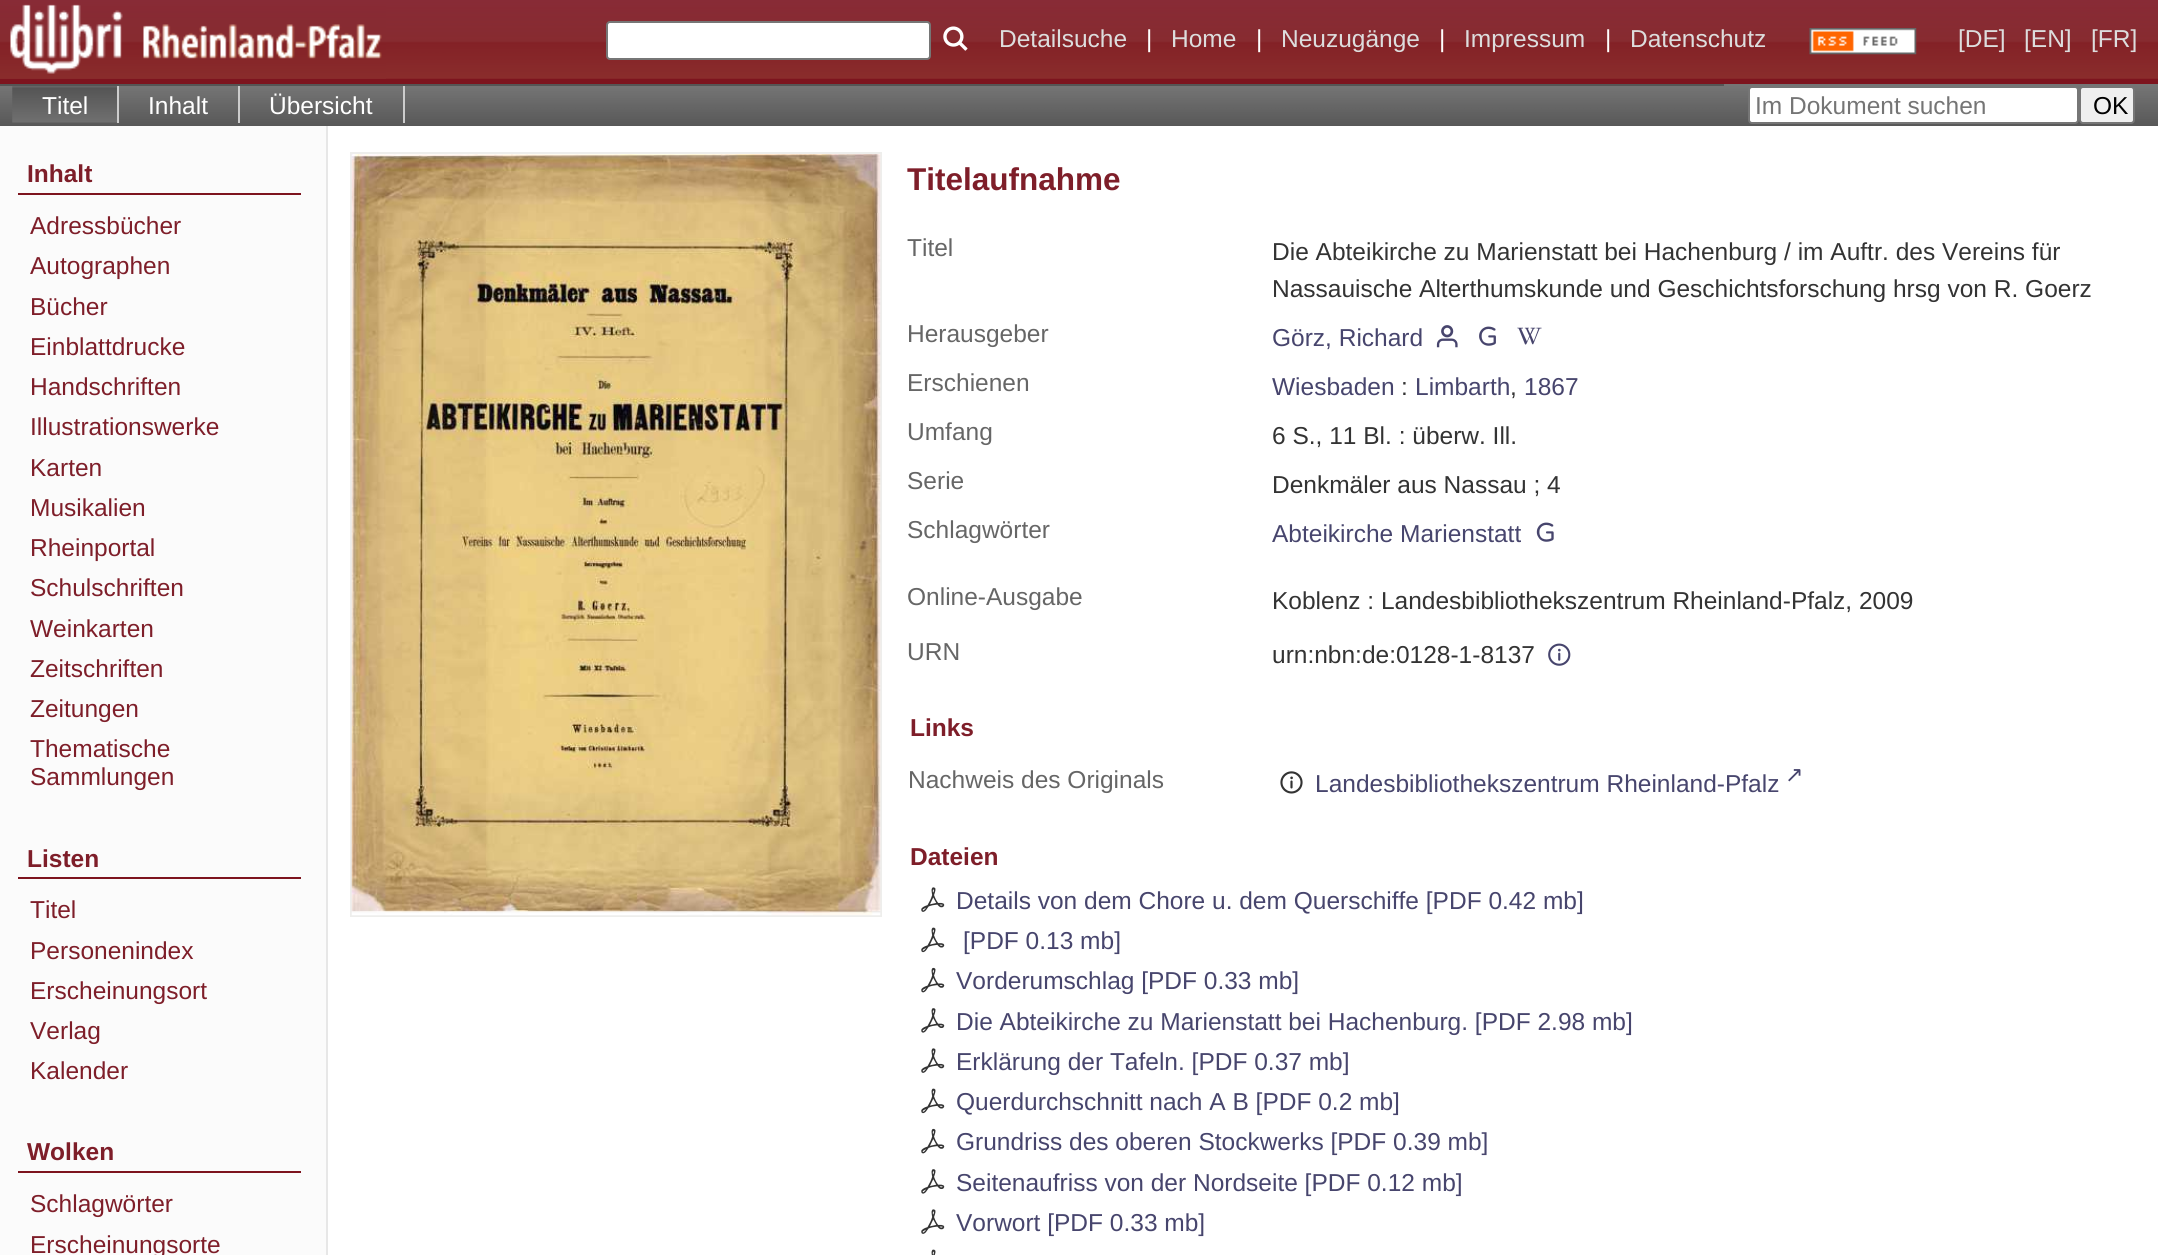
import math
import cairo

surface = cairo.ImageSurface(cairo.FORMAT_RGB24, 2158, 1255)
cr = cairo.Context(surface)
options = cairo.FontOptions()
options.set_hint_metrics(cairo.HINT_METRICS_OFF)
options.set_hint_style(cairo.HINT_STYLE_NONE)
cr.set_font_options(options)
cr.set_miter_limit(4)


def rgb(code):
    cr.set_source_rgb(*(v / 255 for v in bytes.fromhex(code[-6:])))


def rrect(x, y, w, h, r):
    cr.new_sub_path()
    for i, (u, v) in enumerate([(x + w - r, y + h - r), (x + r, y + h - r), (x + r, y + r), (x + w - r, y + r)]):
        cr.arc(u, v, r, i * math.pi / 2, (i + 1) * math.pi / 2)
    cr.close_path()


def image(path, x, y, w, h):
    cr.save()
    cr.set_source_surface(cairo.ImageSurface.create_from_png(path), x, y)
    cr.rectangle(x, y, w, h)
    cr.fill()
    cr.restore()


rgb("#ffffff")
cr.paint()
rgb("#7d141e")
cr.rectangle(0, 78, 2158, 6)
cr.fill()
image("img/1.png", 0, 0, 2158, 79)
image("img/2.png", 0, 4, 386, 75)
rgb("#ffffff")
rrect(607, 22, 323, 37, 3)
cr.fill_preserve()
rgb("#767676")
cr.stroke()
image("img/3.png", 943, 26, 25, 25)
image("img/4.png", 1809, 28, 108, 27)
image("img/5.png", 0, 84, 2158, 42)
rgb("#555555")
cr.rectangle(0, 84, 1724, 2)
cr.fill()
image("img/6.png", 12, 86, 105, 37)
for x, y, w, h, color in [
    (117, 86, 2, 37, "#cccccc"),
    (238, 86, 2, 37, "#cccccc"),
    (403, 86, 2, 37, "#cccccc"),
]:
    rgb(color)
    cr.rectangle(x, y, w, h)
    cr.fill()
rgb("#ffffff")
rrect(1749, 87, 329, 36, 3)
cr.fill_preserve()
rgb("#767676")
cr.stroke()
rgb("#efefef")
rrect(2080, 87, 54, 36, 3)
cr.fill_preserve()
rgb("#767676")
cr.stroke()
for x, y, w, h, color in [
    (0, 126, 326, 1129, "#fbfbfb"),
    (326, 126, 2, 1129, "#e7e7e7"),
    (18, 193, 283, 2, "#7d141e"),
    (18, 877, 283, 2, "#7d141e"),
    (18, 1171, 283, 2, "#7d141e"),
]:
    rgb(color)
    cr.rectangle(x, y, w, h)
    cr.fill()
cr.rectangle(351, 153, 530, 763)
rgb("#eeeeec")
cr.stroke()
image("img/7.png", 351, 154, 530, 762)
image("img/8.png", 1436, 325, 22, 23)
image("img/9.png", 1479, 326, 17, 20)
image("img/10.png", 1517, 327, 25, 18)
image("img/11.png", 1536, 522, 18, 20)
image("img/12.png", 1548, 643, 23, 23)
image("img/13.png", 1280, 771, 23, 23)
image("img/14.png", 921, 887, 24, 25)
image("img/15.png", 921, 927, 24, 26)
image("img/16.png", 921, 967, 24, 26)
image("img/17.png", 921, 1008, 24, 25)
image("img/14.png", 921, 1048, 24, 25)
image("img/15.png", 921, 1088, 24, 26)
image("img/16.png", 921, 1128, 24, 26)
image("img/17.png", 921, 1169, 24, 25)
image("img/14.png", 921, 1209, 24, 25)
image("img/18.png", 931, 1249, 5, 6)
cr.select_font_face("Liberation Sans")
cr.set_font_size(24.5)
rgb("#dddddd")
cr.move_to(999, 47)
cr.show_text("Detailsuche")
rgb("#ffffff")
cr.move_to(1146, 47)
cr.show_text("|")
rgb("#dddddd")
cr.move_to(1171, 47)
cr.show_text("Home")
rgb("#ffffff")
cr.move_to(1256, 47)
cr.show_text("|")
rgb("#dddddd")
cr.move_to(1281, 47)
cr.show_text("Neuzugänge")
rgb("#ffffff")
cr.move_to(1439, 47)
cr.show_text("|")
rgb("#dddddd")
cr.move_to(1464, 47)
cr.show_text("Impressum")
rgb("#ffffff")
cr.move_to(1605, 47)
cr.show_text("|")
rgb("#dddddd")
for x, y, s in [
    (1630, 47, "Datenschutz"),
    (1958, 47, "[DE]"),
    (2024, 47, "[EN]"),
    (2091, 47, "[FR]"),
]:
    cr.move_to(x, y)
    cr.show_text(s)
rgb("#ffffff")
for x, y, s in [
    (42, 114, "Titel"),
    (148, 114, "Inhalt"),
    (269, 114, "Übersicht"),
]:
    cr.move_to(x, y)
    cr.show_text(s)
rgb("#757575")
cr.move_to(1755, 114)
cr.show_text("Im Dokument suchen")
rgb("#000000")
cr.move_to(2093, 114)
cr.show_text("OK")
cr.select_font_face("Liberation Sans", cairo.FONT_SLANT_NORMAL, cairo.FONT_WEIGHT_BOLD)
rgb("#7e1e29")
cr.move_to(27, 182)
cr.show_text("Inhalt")
cr.select_font_face("Liberation Sans")
for x, y, s in [
    (30, 234, "Adressbücher"),
    (30, 274, "Autographen"),
    (30, 315, "Bücher"),
    (30, 355, "Einblattdrucke"),
    (30, 395, "Handschriften"),
    (30, 435, "Illustrationswerke"),
    (30, 476, "Karten"),
    (30, 516, "Musikalien"),
    (30, 556, "Rheinportal"),
    (30, 596, "Schulschriften"),
    (30, 637, "Weinkarten"),
    (30, 677, "Zeitschriften"),
    (30, 717, "Zeitungen"),
    (30, 757, "Thematische"),
    (30, 785, "Sammlungen"),
]:
    cr.move_to(x, y)
    cr.show_text(s)
cr.select_font_face("Liberation Sans", cairo.FONT_SLANT_NORMAL, cairo.FONT_WEIGHT_BOLD)
cr.move_to(27, 867)
cr.show_text("Listen")
cr.select_font_face("Liberation Sans")
for x, y, s in [
    (30, 918, "Titel"),
    (30, 959, "Personenindex"),
    (30, 999, "Erscheinungsort"),
    (30, 1039, "Verlag"),
    (30, 1079, "Kalender"),
]:
    cr.move_to(x, y)
    cr.show_text(s)
cr.select_font_face("Liberation Sans", cairo.FONT_SLANT_NORMAL, cairo.FONT_WEIGHT_BOLD)
cr.move_to(27, 1160)
cr.show_text("Wolken")
cr.select_font_face("Liberation Sans")
cr.move_to(30, 1212)
cr.show_text("Schlagwörter")
cr.move_to(30, 1253)
cr.show_text("Erscheinungsorte")
cr.select_font_face("Liberation Sans", cairo.FONT_SLANT_NORMAL, cairo.FONT_WEIGHT_BOLD)
cr.set_font_size(31.5)
cr.move_to(907, 190)
cr.show_text("Titelaufnahme")
cr.select_font_face("Liberation Sans")
cr.set_font_size(24.5)
rgb("#666666")
cr.move_to(907, 256)
cr.show_text("Titel")
rgb("#333333")
cr.move_to(1272, 260)
cr.show_text("Die Abteikirche zu Marienstatt bei Hachenburg / im Auftr. des Vereins für")
cr.move_to(1272, 297)
cr.show_text("Nassauische Alterthumskunde und Geschichtsforschung hrsg von R. Goerz")
rgb("#666666")
cr.move_to(907, 342)
cr.show_text("Herausgeber")
rgb("#47456d")
cr.move_to(1272, 346)
cr.show_text("Görz, Richard")
rgb("#666666")
cr.move_to(907, 391)
cr.show_text("Erschienen")
rgb("#47456d")
cr.move_to(1272, 395)
cr.show_text("Wiesbaden")
rgb("#333333")
cr.move_to(1401, 395)
cr.show_text(":")
rgb("#47456d")
cr.move_to(1415, 395)
cr.show_text("Limbarth")
rgb("#333333")
cr.move_to(1510, 395)
cr.show_text(",")
rgb("#47456d")
cr.move_to(1524, 395)
cr.show_text("1867")
rgb("#666666")
cr.move_to(907, 440)
cr.show_text("Umfang")
rgb("#333333")
cr.move_to(1272, 444)
cr.show_text("6 S., 11 Bl. : überw. Ill.")
rgb("#666666")
cr.move_to(907, 489)
cr.show_text("Serie")
rgb("#333333")
cr.move_to(1272, 493)
cr.show_text("Denkmäler aus Nassau ; 4")
rgb("#666666")
cr.move_to(907, 538)
cr.show_text("Schlagwörter")
rgb("#47456d")
cr.move_to(1272, 542)
cr.show_text("Abteikirche Marienstatt")
rgb("#666666")
cr.move_to(907, 605)
cr.show_text("Online-Ausgabe")
rgb("#333333")
cr.move_to(1272, 609)
cr.show_text("Koblenz : Landesbibliothekszentrum Rheinland-Pfalz, 2009")
rgb("#666666")
cr.move_to(907, 660)
cr.show_text("URN")
rgb("#333333")
cr.move_to(1272, 663)
cr.show_text("urn:nbn:de:0128-1-8137")
cr.select_font_face("Liberation Sans", cairo.FONT_SLANT_NORMAL, cairo.FONT_WEIGHT_BOLD)
rgb("#7e1e29")
cr.move_to(910, 736)
cr.show_text("Links")
cr.select_font_face("Liberation Sans")
rgb("#666666")
cr.move_to(908, 788)
cr.show_text("Nachweis des Originals")
rgb("#47456d")
cr.move_to(1315, 792)
cr.show_text("Landesbibliothekszentrum Rheinland-Pfalz")
cr.select_font_face("DejaVu Sans")
cr.set_font_size(22)
cr.move_to(1785, 782)
cr.show_text("↗")
cr.select_font_face("Liberation Sans", cairo.FONT_SLANT_NORMAL, cairo.FONT_WEIGHT_BOLD)
cr.set_font_size(24.5)
rgb("#7e1e29")
cr.move_to(910, 865)
cr.show_text("Dateien")
cr.select_font_face("Liberation Sans")
rgb("#47456d")
for x, y, s in [
    (956, 909, "Details von dem Chore u. dem Querschiffe [PDF 0.42 mb]"),
    (963, 949, "[PDF 0.13 mb]"),
    (956, 989, "Vorderumschlag [PDF 0.33 mb]"),
    (956, 1030, "Die Abteikirche zu Marienstatt bei Hachenburg. [PDF 2.98 mb]"),
    (956, 1070, "Erklärung der Tafeln. [PDF 0.37 mb]"),
    (956, 1110, "Querdurchschnitt nach A B [PDF 0.2 mb]"),
    (956, 1150, "Grundriss des oberen Stockwerks [PDF 0.39 mb]"),
    (956, 1191, "Seitenaufriss von der Nordseite [PDF 0.12 mb]"),
    (956, 1231, "Vorwort [PDF 0.33 mb]"),
]:
    cr.move_to(x, y)
    cr.show_text(s)
surface.write_to_png("page.png")
